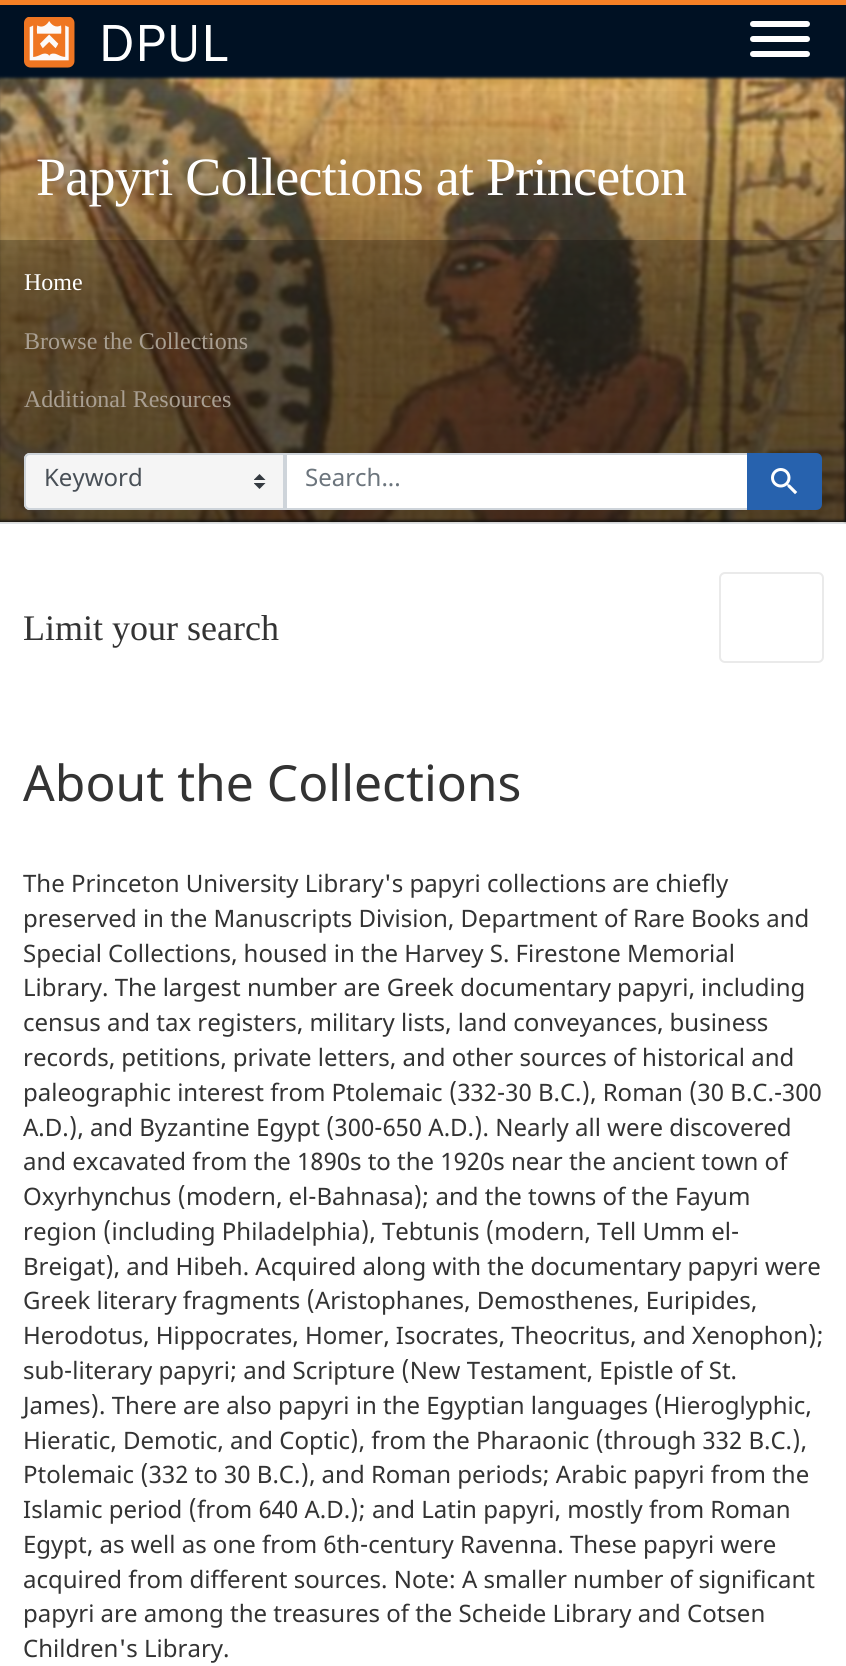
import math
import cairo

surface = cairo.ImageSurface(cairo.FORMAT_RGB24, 846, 1666)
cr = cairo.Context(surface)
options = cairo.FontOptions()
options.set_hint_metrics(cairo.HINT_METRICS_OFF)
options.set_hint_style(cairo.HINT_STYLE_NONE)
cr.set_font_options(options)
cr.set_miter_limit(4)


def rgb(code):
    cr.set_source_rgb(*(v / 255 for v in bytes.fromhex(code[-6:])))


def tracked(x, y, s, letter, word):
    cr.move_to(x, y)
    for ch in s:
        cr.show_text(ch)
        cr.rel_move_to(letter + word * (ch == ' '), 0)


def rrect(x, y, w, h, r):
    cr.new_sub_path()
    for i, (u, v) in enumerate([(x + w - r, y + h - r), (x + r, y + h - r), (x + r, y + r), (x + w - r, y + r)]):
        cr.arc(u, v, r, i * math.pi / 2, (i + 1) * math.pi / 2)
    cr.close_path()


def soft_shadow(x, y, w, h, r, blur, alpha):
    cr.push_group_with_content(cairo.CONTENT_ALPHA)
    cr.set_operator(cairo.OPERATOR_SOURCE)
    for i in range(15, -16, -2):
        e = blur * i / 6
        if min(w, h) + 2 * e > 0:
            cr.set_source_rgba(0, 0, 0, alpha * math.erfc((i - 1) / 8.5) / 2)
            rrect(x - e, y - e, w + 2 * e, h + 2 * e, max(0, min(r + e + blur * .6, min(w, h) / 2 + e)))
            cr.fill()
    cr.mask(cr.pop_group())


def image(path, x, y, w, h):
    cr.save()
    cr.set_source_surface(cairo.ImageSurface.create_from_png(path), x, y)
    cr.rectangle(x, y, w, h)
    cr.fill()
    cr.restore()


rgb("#ffffff")
cr.paint()
rgb("#001123")
cr.rectangle(0, 5, 846, 75)
cr.fill()
rgb("#f58025")
cr.rectangle(0, 0, 846, 5)
cr.fill()
image("img/1.png", 24, 17, 51, 51)
rgb("#ffffff")
rrect(750, 36, 60, 6, 3)
cr.fill()
rrect(750, 21, 60, 6, 3)
cr.fill()
rrect(750, 51, 60, 6, 3)
cr.fill()
rgb("#2b2b2b")
cr.rectangle(0, 80, 846, 442)
cr.fill()
rgb("#dee2e6")
cr.rectangle(0, 522, 846, 2)
cr.fill()
image("img/2.png", 0, 75, 846, 448)
rgb("#2b2b2b")
soft_shadow(845, 78, 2, 443, 0, 1.5, 1)
gradient = cairo.LinearGradient(423, 79, 423, 522)
gradient.add_color_stop_rgba(0, 0, 0, 0, 0)
gradient.add_color_stop_rgba(0.5, 0, 0, 0, 0.4)
gradient.add_color_stop_rgba(1, 0, 0, 0, 0.5)
cr.set_source(gradient)
cr.rectangle(0, 91, 846, 431)
cr.fill()
cr.set_source_rgba(0, 0, 0, 0.25)
cr.rectangle(0, 240, 846, 282)
cr.fill()
rgb("#f5f5f5")
cr.new_path()
cr.move_to(30, 453)
cr.line_to(285, 453)
cr.line_to(285, 510)
cr.line_to(30, 510)
cr.curve_to(26.5, 510, 24, 507.5, 24, 504)
cr.line_to(24, 459)
cr.curve_to(24, 455.5, 26.5, 453, 30, 453)
cr.close_path()
cr.fill()
image("img/3.png", 254, 474, 12, 15)
cr.new_path()
cr.move_to(30, 454)
cr.line_to(284, 454)
cr.line_to(284, 509)
cr.line_to(30, 509)
cr.curve_to(27, 509, 25, 507, 25, 504)
cr.line_to(25, 459)
cr.curve_to(25, 456, 27, 454, 30, 454)
cr.close_path()
rgb("#ced4da")
cr.stroke()
rgb("#ffffff")
cr.rectangle(286, 454, 462, 55)
cr.fill_preserve()
rgb("#ced4da")
cr.stroke()
rgb("#2762ae")
cr.new_path()
cr.move_to(748, 454)
cr.line_to(816, 454)
cr.curve_to(819, 454, 821, 456, 821, 459)
cr.line_to(821, 504)
cr.curve_to(821, 507, 819, 509, 816, 509)
cr.line_to(748, 509)
cr.close_path()
cr.fill_preserve()
cr.stroke()
image("img/4.png", 771, 468, 27, 27)
rrect(720, 573, 103, 89, 5)
rgb("#eaeaea")
cr.stroke()
cr.select_font_face("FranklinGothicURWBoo")
cr.set_font_size(54)
rgb("#ffffff")
tracked(99, 61, "DPUL", 1.5, 0)
cr.select_font_face("Liberation Serif")
tracked(36, 195, "Papyri Collections at Princeton", -0.75, 0)
cr.set_font_size(24)
cr.move_to(24, 290)
cr.show_text("Home")
rgb("#a99f92")
cr.move_to(24, 349)
cr.show_text("Browse the Collections")
cr.move_to(24, 407)
cr.show_text("Additional Resources")
cr.select_font_face("Noto Sans Devanagari")
rgb("#495057")
cr.move_to(44, 486)
cr.show_text("Keyword")
rgb("#6c757d")
cr.move_to(305, 486)
cr.show_text("Search...")
cr.select_font_face("Liberation Serif")
cr.set_font_size(36)
rgb("#333333")
cr.move_to(23, 640)
cr.show_text("Limit your search")
cr.select_font_face("Noto Sans Devanagari")
cr.set_font_size(49.75)
cr.move_to(23, 801)
cr.show_text("About the Collections")
cr.set_font_size(24)
for x, y, s in [
    (23, 892, "The Princeton University Library's papyri collections are chiefly"),
    (23, 927, "preserved in the Manuscripts Division, Department of Rare Books and"),
    (23, 962, "Special Collections, housed in the Harvey S. Firestone Memorial"),
    (23, 996, "Library. The largest number are Greek documentary papyri, including"),
    (23, 1031, "census and tax registers, military lists, land conveyances, business"),
    (23, 1066, "records, petitions, private letters, and other sources of historical and"),
    (23, 1101, "paleographic interest from Ptolemaic (332-30 B.C.), Roman (30 B.C.-300"),
    (23, 1136, "A.D.), and Byzantine Egypt (300-650 A.D.). Nearly all were discovered"),
    (23, 1170, "and excavated from the 1890s to the 1920s near the ancient town of"),
    (23, 1205, "Oxyrhynchus (modern, el-Bahnasa); and the towns of the Fayum"),
    (23, 1240, "region (including Philadelphia), Tebtunis (modern, Tell Umm el-"),
    (23, 1275, "Breigat), and Hibeh. Acquired along with the documentary papyri were"),
    (23, 1309, "Greek literary fragments (Aristophanes, Demosthenes, Euripides,"),
    (23, 1344, "Herodotus, Hippocrates, Homer, Isocrates, Theocritus, and Xenophon);"),
    (23, 1379, "sub-literary papyri; and Scripture (New Testament, Epistle of St."),
    (23, 1414, "James). There are also papyri in the Egyptian languages (Hieroglyphic,"),
    (23, 1449, "Hieratic, Demotic, and Coptic), from the Pharaonic (through 332 B.C.),"),
    (23, 1483, "Ptolemaic (332 to 30 B.C.), and Roman periods; Arabic papyri from the"),
    (23, 1518, "Islamic period (from 640 A.D.); and Latin papyri, mostly from Roman"),
    (23, 1553, "Egypt, as well as one from 6th-century Ravenna. These papyri were"),
    (23, 1588, "acquired from different sources. Note: A smaller number of significant"),
    (23, 1622, "papyri are among the treasures of the Scheide Library and Cotsen"),
    (23, 1657, "Children's Library."),
]:
    cr.move_to(x, y)
    cr.show_text(s)
surface.write_to_png("page.png")
